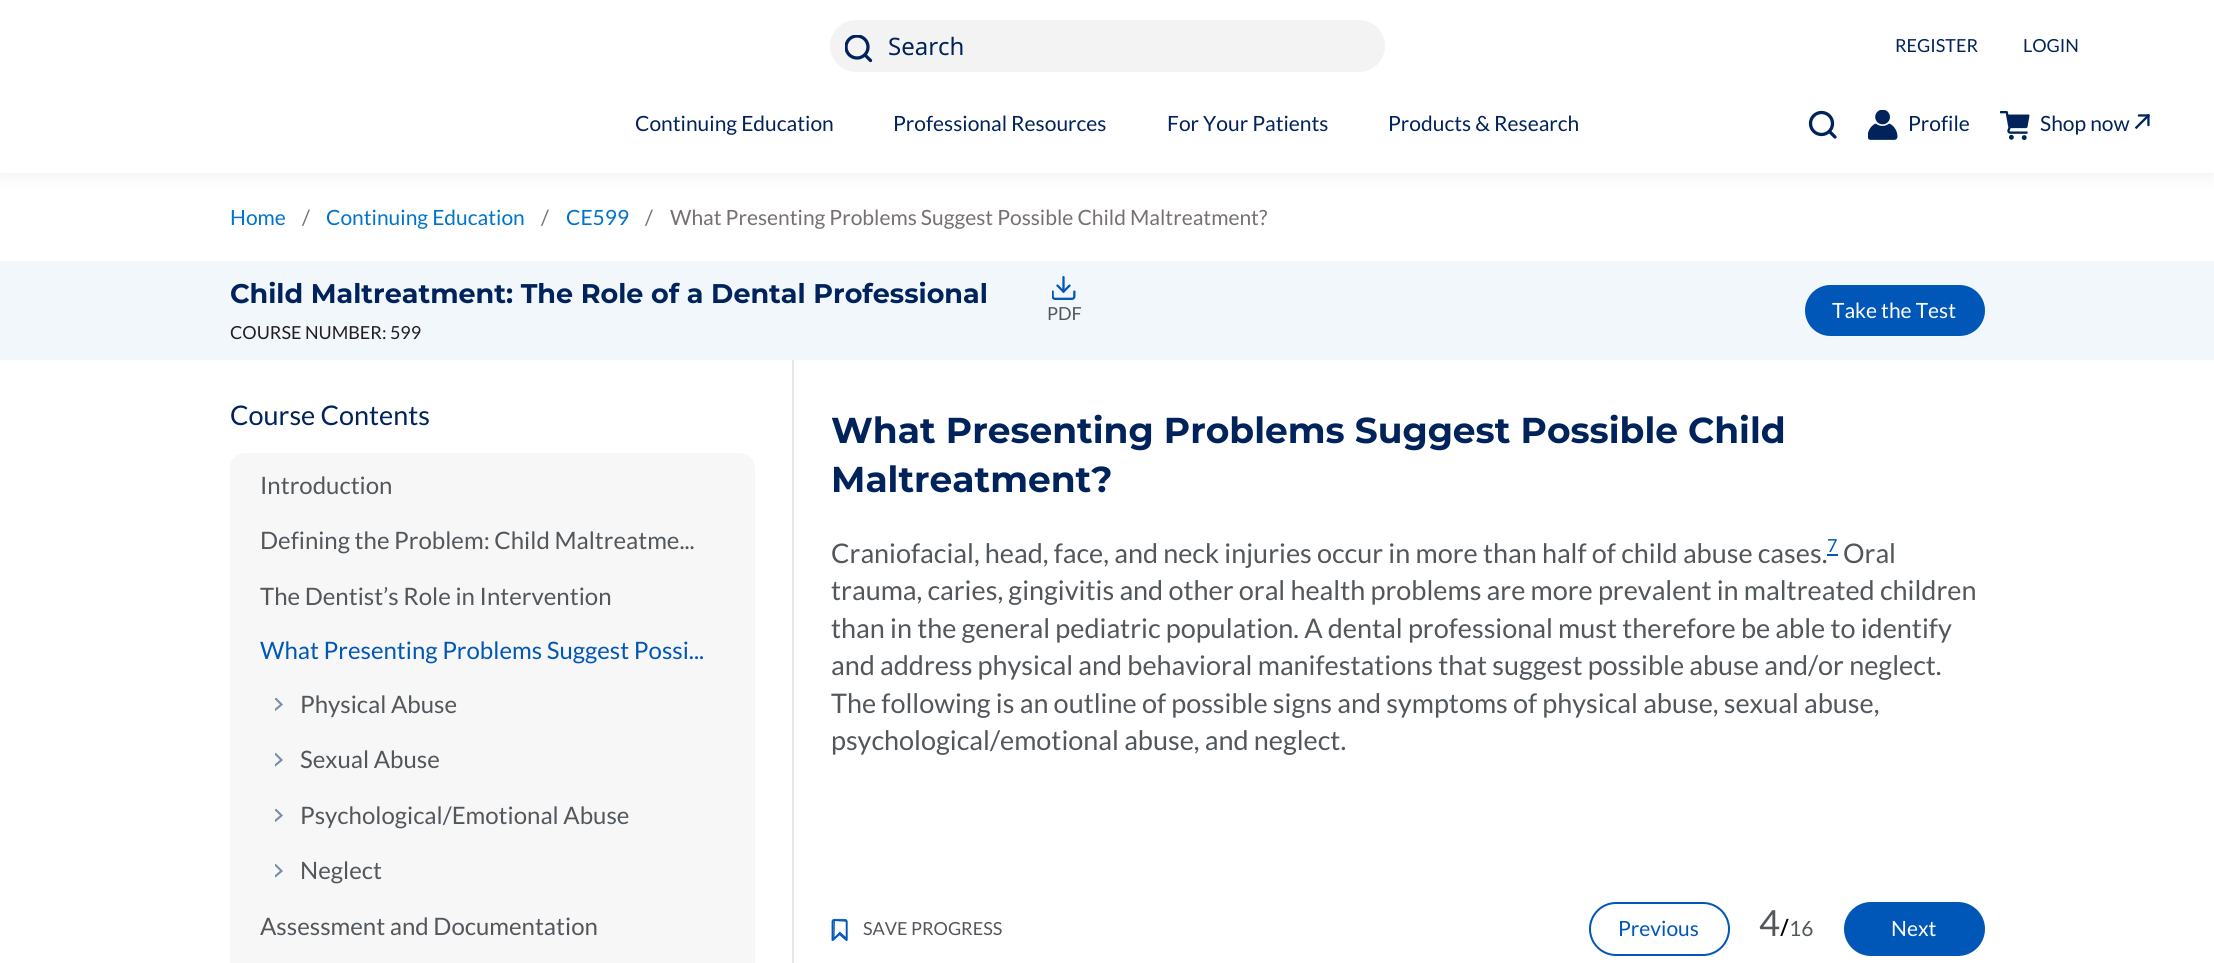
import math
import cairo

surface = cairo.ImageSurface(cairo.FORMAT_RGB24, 2214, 963)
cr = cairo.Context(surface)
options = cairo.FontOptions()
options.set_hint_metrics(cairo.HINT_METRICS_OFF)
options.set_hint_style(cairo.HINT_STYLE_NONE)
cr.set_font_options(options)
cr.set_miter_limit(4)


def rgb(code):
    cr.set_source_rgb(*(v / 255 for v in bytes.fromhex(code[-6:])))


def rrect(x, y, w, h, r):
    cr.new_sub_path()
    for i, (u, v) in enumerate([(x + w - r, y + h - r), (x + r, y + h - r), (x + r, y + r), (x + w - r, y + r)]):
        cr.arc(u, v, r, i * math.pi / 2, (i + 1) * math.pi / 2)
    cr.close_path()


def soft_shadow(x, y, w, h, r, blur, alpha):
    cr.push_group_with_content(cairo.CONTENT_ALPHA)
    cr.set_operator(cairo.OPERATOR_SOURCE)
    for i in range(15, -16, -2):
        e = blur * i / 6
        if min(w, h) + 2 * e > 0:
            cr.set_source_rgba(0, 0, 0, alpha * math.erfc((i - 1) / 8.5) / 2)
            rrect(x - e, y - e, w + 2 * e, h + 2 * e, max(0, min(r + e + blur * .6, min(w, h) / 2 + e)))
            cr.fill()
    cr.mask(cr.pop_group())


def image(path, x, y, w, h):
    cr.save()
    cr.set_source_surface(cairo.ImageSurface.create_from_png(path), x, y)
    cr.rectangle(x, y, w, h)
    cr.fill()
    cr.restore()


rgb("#ffffff")
cr.paint()
rgb("#000000")
soft_shadow(0, 5, 2214, 172, 0, 7.5, 0.05)
rgb("#ffffff")
cr.rectangle(0, 0, 2214, 173)
cr.fill()
rgb("#f3f3f3")
rrect(830, 20, 555, 52, 26)
cr.fill()
cr.new_path()
cr.move_to(866, 56)
cr.line_to(870.5, 60.5)
rgb("#00235c")
cr.set_line_width(3.3)
cr.set_line_cap(cairo.LINE_CAP_ROUND)
cr.stroke()
cr.save()
cr.rectangle(845, 35, 28, 28)
cr.clip()
cr.arc(857, 47, 11, 0, 2 * math.pi)
cr.set_line_cap(cairo.LINE_CAP_BUTT)
cr.stroke()
cr.restore()
cr.new_path()
cr.move_to(1830.5, 132.5)
cr.line_to(1835, 137)
cr.stroke()
cr.arc(1821.5, 123.5, 11, 0, 2 * math.pi)
cr.set_line_cap(cairo.LINE_CAP_BUTT)
cr.stroke()
image("img/1.png", 1868, 110, 30, 30)
image("img/2.png", 2000, 111, 30, 29)
image("img/3.png", 2134, 114, 16, 16)
rgb("#f2f7fc")
cr.rectangle(0, 261, 2214, 99)
cr.fill()
image("img/4.png", 1052, 276, 24, 24)
rgb("#0057b8")
rrect(1805, 285, 180, 51, 25.5)
cr.fill()
rgb("#f7f7f7")
rrect(230, 453, 525, 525, 15)
cr.fill()
cr.save()
cr.rectangle(275, 698, 10, 18)
cr.clip()
cr.new_path()
cr.move_to(275, 698)
cr.line_to(281.5, 704.5)
cr.line_to(275, 710)
rgb("#7c8daa")
cr.set_line_width(2.1)
cr.set_line_cap(cairo.LINE_CAP_ROUND)
cr.stroke()
cr.restore()
cr.save()
cr.rectangle(275, 753, 10, 18)
cr.clip()
cr.new_path()
cr.move_to(275, 753.5)
cr.line_to(281.5, 760)
cr.line_to(275, 765.5)
rgb("#7c8daa")
cr.set_line_width(2.1)
cr.set_line_cap(cairo.LINE_CAP_ROUND)
cr.stroke()
cr.restore()
cr.save()
cr.rectangle(275, 809, 10, 18)
cr.clip()
cr.new_path()
cr.move_to(275, 809)
cr.line_to(281.5, 815.5)
cr.line_to(275, 821)
rgb("#7c8daa")
cr.set_line_width(2.1)
cr.set_line_cap(cairo.LINE_CAP_ROUND)
cr.stroke()
cr.restore()
cr.save()
cr.rectangle(275, 864, 10, 18)
cr.clip()
cr.new_path()
cr.move_to(275, 864.5)
cr.line_to(281.5, 871)
cr.line_to(275, 876.5)
rgb("#7c8daa")
cr.set_line_width(2.1)
cr.set_line_cap(cairo.LINE_CAP_ROUND)
cr.stroke()
cr.restore()
rgb("#e5e7eb")
cr.rectangle(792, 360, 2, 603)
cr.fill()
rgb("#0057b8")
cr.rectangle(1827, 554, 11, 2)
cr.fill()
image("img/5.png", 831, 918, 17, 23)
rrect(1590, 903, 139, 52, 26)
cr.set_line_width(2)
cr.stroke()
rrect(1844, 902, 141, 54, 27)
cr.fill()
cr.select_font_face("Noto Sans")
cr.set_font_size(24)
rgb("#00235c")
cr.move_to(888, 55)
cr.show_text("Search")
cr.select_font_face("Lato")
cr.set_font_size(18)
cr.move_to(1895, 52)
cr.show_text("REGISTER")
cr.move_to(2023, 52)
cr.show_text("LOGIN")
cr.set_font_size(21)
for x, y, s in [
    (635, 131, "Continuing Education"),
    (893, 131, "Professional Resources"),
    (1167, 131, "For Your Patients"),
    (1388, 131, "Products & Research"),
    (1908, 131, "Profile"),
    (2040, 131, "Shop now"),
]:
    cr.move_to(x, y)
    cr.show_text(s)
rgb("#0073cc")
cr.move_to(230, 225)
cr.show_text("Home")
rgb("#767070")
cr.move_to(302, 225)
cr.show_text("/")
rgb("#0073cc")
cr.move_to(326, 225)
cr.show_text("Continuing Education")
rgb("#767070")
cr.move_to(541, 225)
cr.show_text("/")
rgb("#0073cc")
cr.move_to(566, 225)
cr.show_text("CE599")
rgb("#767070")
cr.move_to(645, 225)
cr.show_text("/")
cr.move_to(670, 225)
cr.show_text("What Presenting Problems Suggest Possible Child Maltreatment?")
cr.select_font_face("Montserrat", cairo.FONT_SLANT_NORMAL, cairo.FONT_WEIGHT_BOLD)
cr.set_font_size(27)
rgb("#00235c")
cr.move_to(230, 303)
cr.show_text("Child Maltreatment: The Role of a Dental Professional")
cr.select_font_face("Lato")
cr.set_font_size(18)
rgb("#231f20")
cr.move_to(230, 339)
cr.show_text("COURSE NUMBER: 599")
rgb("#52575c")
cr.move_to(1047, 320)
cr.show_text("PDF")
cr.set_font_size(21)
rgb("#ffffff")
cr.move_to(1832, 318)
cr.show_text("Take the Test")
cr.set_font_size(27)
rgb("#00235c")
cr.move_to(230, 425)
cr.show_text("Course Contents")
cr.set_font_size(24)
rgb("#52575c")
for x, y, s in [
    (260, 494, "Introduction"),
    (260, 549, "Defining the Problem: Child Maltreatme..."),
    (260, 605, "The Dentist’s Role in Intervention"),
]:
    cr.move_to(x, y)
    cr.show_text(s)
rgb("#0057b8")
cr.move_to(260, 659)
cr.show_text("What Presenting Problems Suggest Possi...")
rgb("#52575c")
for x, y, s in [
    (300, 713, "Physical Abuse"),
    (300, 768, "Sexual Abuse"),
    (300, 824, "Psychological/Emotional Abuse"),
    (300, 879, "Neglect"),
    (260, 935, "Assessment and Documentation"),
]:
    cr.move_to(x, y)
    cr.show_text(s)
cr.select_font_face("Montserrat", cairo.FONT_SLANT_NORMAL, cairo.FONT_WEIGHT_BOLD)
cr.set_font_size(36)
rgb("#00235c")
cr.move_to(831, 443)
cr.show_text("What Presenting Problems Suggest Possible Child")
cr.move_to(831, 492)
cr.show_text("Maltreatment?")
cr.select_font_face("Lato")
cr.set_font_size(27)
rgb("#52575c")
cr.move_to(831, 563)
cr.show_text("Craniofacial, head, face, and neck injuries occur in more than half of child abuse cases.")
cr.set_font_size(18)
rgb("#0057b8")
cr.move_to(1827, 552)
cr.show_text("7")
cr.set_font_size(27)
rgb("#52575c")
for x, y, s in [
    (1843, 563, "Oral"),
    (831, 600, "trauma, caries, gingivitis and other oral health problems are more prevalent in maltreated children"),
    (831, 638, "than in the general pediatric population. A dental professional must therefore be able to identify"),
    (831, 675, "and address physical and behavioral manifestations that suggest possible abuse and/or neglect."),
    (831, 713, "The following is an outline of possible signs and symptoms of physical abuse, sexual abuse,"),
    (831, 750, "psychological/emotional abuse, and neglect."),
]:
    cr.move_to(x, y)
    cr.show_text(s)
cr.set_font_size(18)
cr.move_to(863, 935)
cr.show_text("SAVE PROGRESS")
cr.set_font_size(21)
rgb("#0057b8")
cr.move_to(1618, 936)
cr.show_text("Previous")
cr.set_font_size(36)
rgb("#52575c")
cr.move_to(1759, 936)
cr.show_text("4")
cr.select_font_face("Noto Sans")
cr.set_font_size(24)
rgb("#000000")
cr.move_to(1780, 936)
cr.show_text("/")
cr.select_font_face("Lato")
cr.set_font_size(21)
rgb("#52575c")
cr.move_to(1789, 936)
cr.show_text("16")
rgb("#ffffff")
cr.move_to(1891, 936)
cr.show_text("Next")
surface.write_to_png("page.png")
